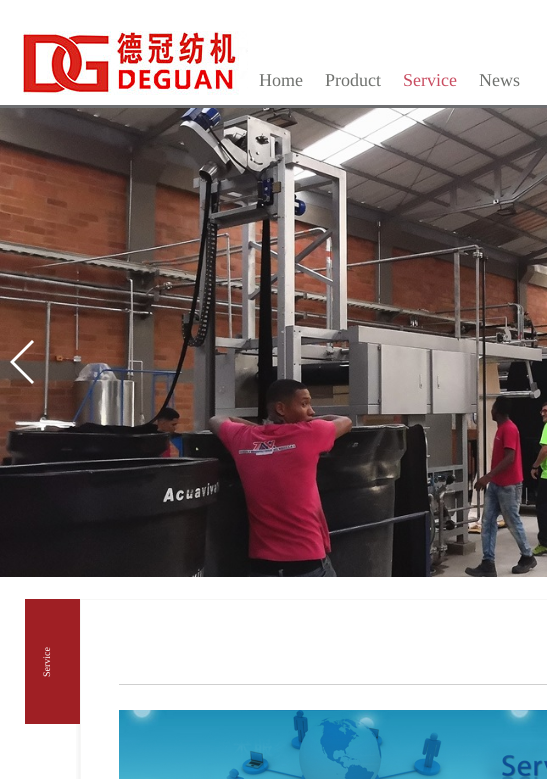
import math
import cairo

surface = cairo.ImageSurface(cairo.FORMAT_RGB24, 547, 779)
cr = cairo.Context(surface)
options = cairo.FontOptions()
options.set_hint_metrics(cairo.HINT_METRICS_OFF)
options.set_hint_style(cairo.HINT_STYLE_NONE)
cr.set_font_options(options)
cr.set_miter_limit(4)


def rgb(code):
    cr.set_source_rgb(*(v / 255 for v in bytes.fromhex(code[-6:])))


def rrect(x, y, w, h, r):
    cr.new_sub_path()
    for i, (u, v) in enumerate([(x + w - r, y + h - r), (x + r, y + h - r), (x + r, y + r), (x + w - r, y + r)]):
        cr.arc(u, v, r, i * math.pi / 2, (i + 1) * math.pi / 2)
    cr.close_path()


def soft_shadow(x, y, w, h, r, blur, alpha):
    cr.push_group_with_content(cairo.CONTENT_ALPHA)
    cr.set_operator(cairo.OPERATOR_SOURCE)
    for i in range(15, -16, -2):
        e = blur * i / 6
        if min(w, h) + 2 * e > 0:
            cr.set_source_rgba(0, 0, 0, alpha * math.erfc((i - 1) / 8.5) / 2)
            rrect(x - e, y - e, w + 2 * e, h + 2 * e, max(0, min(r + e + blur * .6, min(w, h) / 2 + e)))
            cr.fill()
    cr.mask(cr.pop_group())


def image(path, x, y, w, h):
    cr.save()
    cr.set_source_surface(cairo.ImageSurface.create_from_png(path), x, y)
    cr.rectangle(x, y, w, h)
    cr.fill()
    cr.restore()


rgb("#ffffff")
cr.paint()
image("img/1.png", 23, 31, 225, 64)
rgb("#6d6e70")
cr.rectangle(0, 105, 547, 3)
cr.fill()
image("img/2.png", 0, 108, 547, 469)
rgb("#ffffff")
cr.new_path()
cr.move_to(10, 362)
cr.line_to(32, 340)
cr.line_to(34, 342)
cr.line_to(14, 362)
cr.line_to(34, 382)
cr.line_to(32, 384)
cr.close_path()
cr.fill()
cr.save()
cr.rectangle(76, 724, 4, 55)
cr.clip()
rgb("#000000")
soft_shadow(80, 604, 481, 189, 0, 4.5, 0.1)
cr.restore()
rgb("#9f1f24")
cr.rectangle(25, 599, 55, 125)
cr.fill()
cr.rectangle(80.5, 599.5, 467, 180)
rgb("#f7f7f6")
cr.set_line_width(1)
cr.stroke()
rgb("#cfcfcf")
cr.rectangle(119, 684, 428, 1)
cr.fill()
image("img/3.png", 119, 710, 428, 69)
cr.select_font_face("Liberation Serif")
cr.set_font_size(18)
rgb("#6f716e")
cr.move_to(259, 86)
cr.show_text("Home")
cr.move_to(325, 86)
cr.show_text("Product")
rgb("#c94d61")
cr.move_to(403, 86)
cr.show_text("Service")
rgb("#6f716e")
cr.move_to(479, 86)
cr.show_text("News")
cr.set_font_size(10)
rgb("#ffffff")
cr.save()
cr.translate(50, 677)
cr.rotate(-90 * math.pi / 180)
cr.move_to(0, 0)
cr.show_text("Service")
cr.restore()
surface.write_to_png("page.png")
